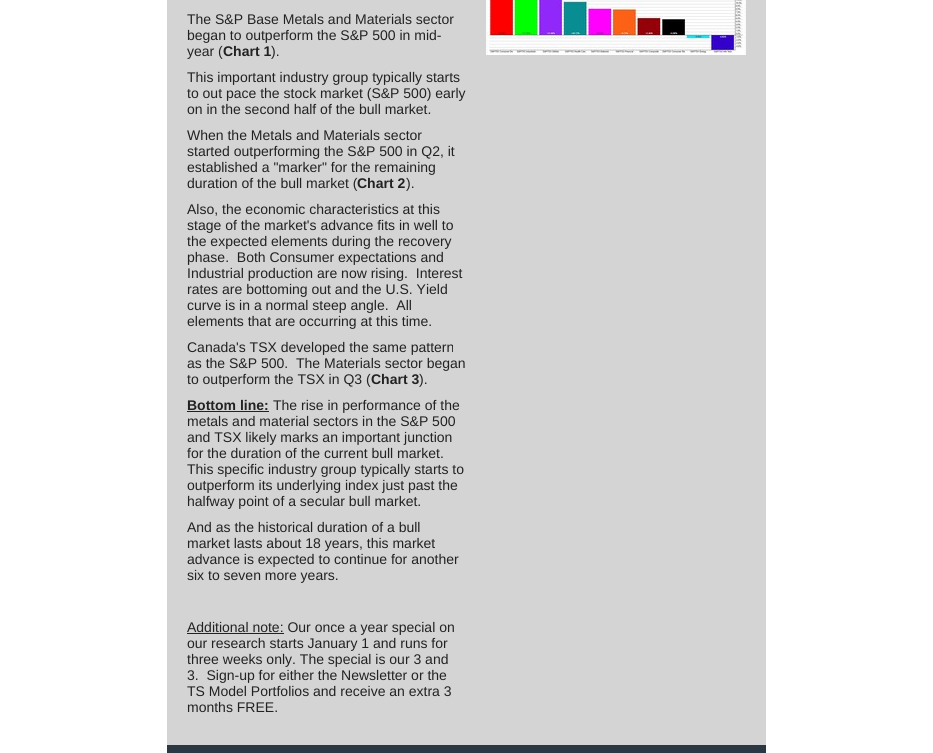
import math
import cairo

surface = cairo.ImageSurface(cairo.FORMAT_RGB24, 933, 753)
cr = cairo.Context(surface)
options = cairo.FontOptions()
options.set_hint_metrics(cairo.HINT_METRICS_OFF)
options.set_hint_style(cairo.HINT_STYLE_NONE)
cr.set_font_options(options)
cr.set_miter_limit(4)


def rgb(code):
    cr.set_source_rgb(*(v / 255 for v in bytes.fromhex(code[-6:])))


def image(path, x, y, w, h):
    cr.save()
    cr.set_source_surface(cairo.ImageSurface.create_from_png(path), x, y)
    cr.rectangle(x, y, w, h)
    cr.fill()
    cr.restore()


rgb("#ffffff")
cr.paint()
for x, y, w, h, color in [
    (167, 0, 599, 745, "#d4d4d4"),
    (187, 411, 82, 1, "#222222"),
    (187, 633, 97, 1, "#222222"),
]:
    rgb(color)
    cr.rectangle(x, y, w, h)
    cr.fill()
image("img/1.png", 486, 0, 260, 55)
rgb("#293842")
cr.rectangle(167, 745, 599, 8)
cr.fill()
cr.select_font_face("Liberation Sans")
cr.set_font_size(14)
rgb("#222222")
for x, y, s in [
    (187, 24, "The S&P Base Metals and Materials sector"),
    (187, 40, "began to outperform the S&P 500 in mid-"),
    (187, 56, "year ("),
]:
    cr.move_to(x, y)
    cr.show_text(s)
cr.select_font_face("Liberation Sans", cairo.FONT_SLANT_NORMAL, cairo.FONT_WEIGHT_BOLD)
cr.move_to(223, 56)
cr.show_text("Chart 1")
cr.select_font_face("Liberation Sans")
for x, y, s in [
    (271, 56, ")."),
    (187, 82, "This important industry group typically starts"),
    (187, 98, "to out pace the stock market (S&P 500) early"),
    (187, 114, "on in the second half of the bull market."),
    (187, 140, "When the Metals and Materials sector"),
    (187, 156, "started outperforming the S&P 500 in Q2, it"),
    (187, 172, "established a \"marker\" for the remaining"),
    (187, 188, "duration of the bull market ("),
]:
    cr.move_to(x, y)
    cr.show_text(s)
cr.select_font_face("Liberation Sans", cairo.FONT_SLANT_NORMAL, cairo.FONT_WEIGHT_BOLD)
cr.move_to(357, 188)
cr.show_text("Chart 2")
cr.select_font_face("Liberation Sans")
for x, y, s in [
    (406, 188, ")."),
    (187, 214, "Also, the economic characteristics at this"),
    (187, 230, "stage of the market's advance fits in well to"),
    (187, 246, "the expected elements during the recovery"),
    (187, 262, "phase.  Both Consumer expectations and"),
    (187, 278, "Industrial production are now rising.  Interest"),
    (187, 294, "rates are bottoming out and the U.S. Yield"),
    (187, 310, "curve is in a normal steep angle.  All"),
    (187, 326, "elements that are occurring at this time."),
    (187, 352, "Canada's TSX developed the same pattern"),
    (187, 368, "as the S&P 500.  The Materials sector began"),
    (187, 384, "to outperform the TSX in Q3 ("),
]:
    cr.move_to(x, y)
    cr.show_text(s)
cr.select_font_face("Liberation Sans", cairo.FONT_SLANT_NORMAL, cairo.FONT_WEIGHT_BOLD)
cr.move_to(371, 384)
cr.show_text("Chart 3")
cr.select_font_face("Liberation Sans")
cr.move_to(419, 384)
cr.show_text(").")
cr.select_font_face("Liberation Sans", cairo.FONT_SLANT_NORMAL, cairo.FONT_WEIGHT_BOLD)
cr.move_to(187, 410)
cr.show_text("Bottom line:")
cr.select_font_face("Liberation Sans")
for x, y, s in [
    (273, 410, "The rise in performance of the"),
    (187, 426, "metals and material sectors in the S&P 500"),
    (187, 442, "and TSX likely marks an important junction"),
    (187, 458, "for the duration of the current bull market."),
    (187, 474, "This specific industry group typically starts to"),
    (187, 490, "outperform its underlying index just past the"),
    (187, 506, "halfway point of a secular bull market."),
    (187, 532, "And as the historical duration of a bull"),
    (187, 548, "market lasts about 18 years, this market"),
    (187, 564, "advance is expected to continue for another"),
    (187, 580, "six to seven more years."),
    (187, 632, "Additional note: Our once a year special on"),
    (187, 648, "our research starts January 1 and runs for"),
    (187, 664, "three weeks only. The special is our 3 and"),
    (187, 680, "3.  Sign-up for either the Newsletter or the"),
    (187, 696, "TS Model Portfolios and receive an extra 3"),
    (187, 712, "months FREE."),
]:
    cr.move_to(x, y)
    cr.show_text(s)
surface.write_to_png("page.png")
